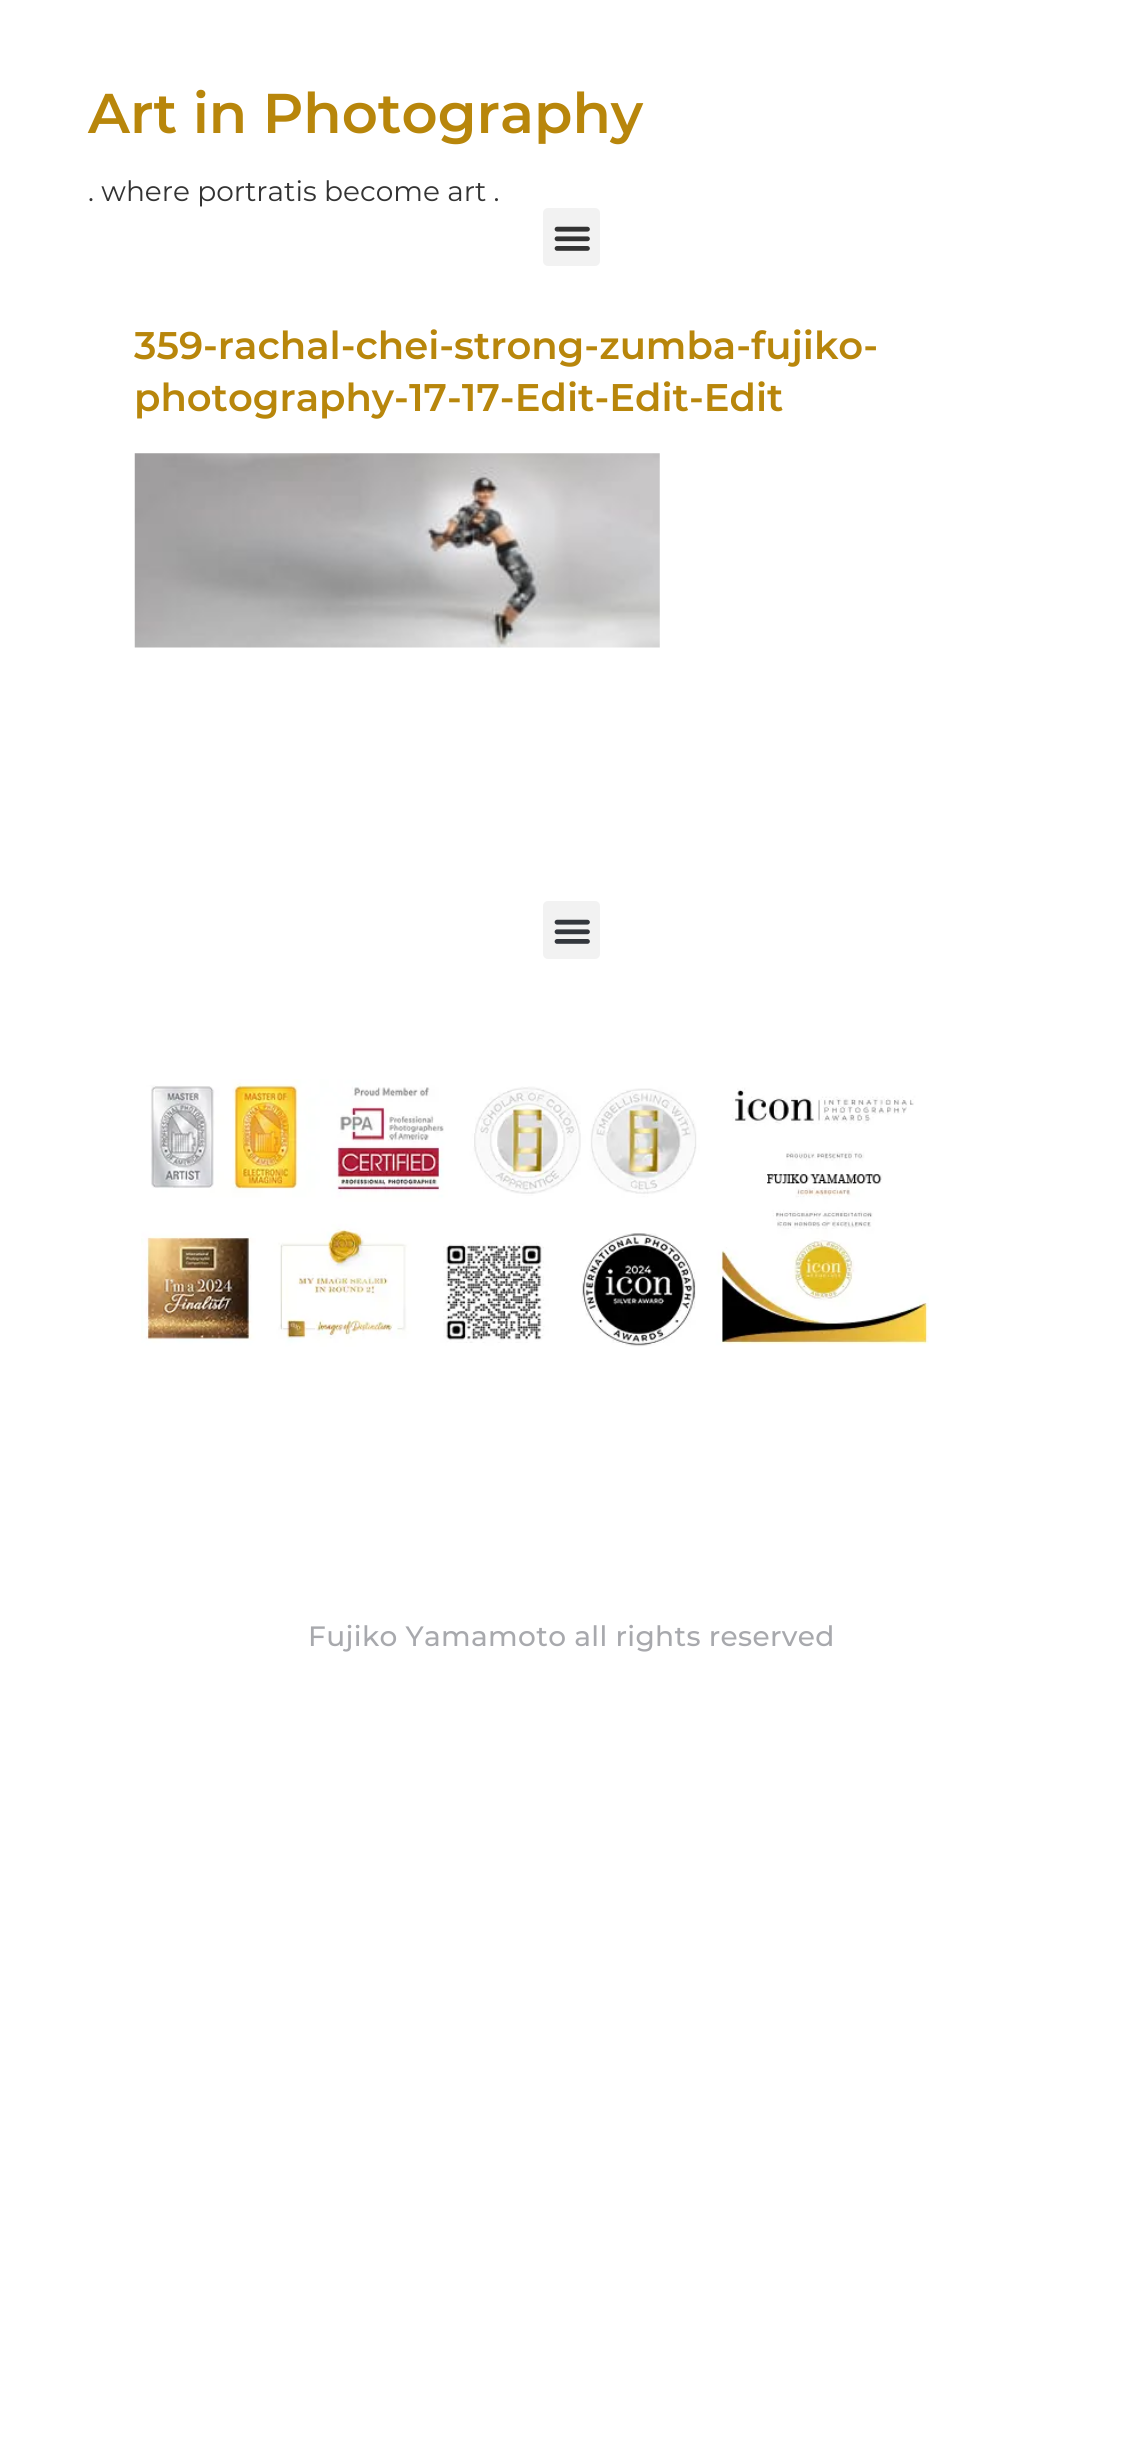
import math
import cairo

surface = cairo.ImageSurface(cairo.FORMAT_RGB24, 1142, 2447)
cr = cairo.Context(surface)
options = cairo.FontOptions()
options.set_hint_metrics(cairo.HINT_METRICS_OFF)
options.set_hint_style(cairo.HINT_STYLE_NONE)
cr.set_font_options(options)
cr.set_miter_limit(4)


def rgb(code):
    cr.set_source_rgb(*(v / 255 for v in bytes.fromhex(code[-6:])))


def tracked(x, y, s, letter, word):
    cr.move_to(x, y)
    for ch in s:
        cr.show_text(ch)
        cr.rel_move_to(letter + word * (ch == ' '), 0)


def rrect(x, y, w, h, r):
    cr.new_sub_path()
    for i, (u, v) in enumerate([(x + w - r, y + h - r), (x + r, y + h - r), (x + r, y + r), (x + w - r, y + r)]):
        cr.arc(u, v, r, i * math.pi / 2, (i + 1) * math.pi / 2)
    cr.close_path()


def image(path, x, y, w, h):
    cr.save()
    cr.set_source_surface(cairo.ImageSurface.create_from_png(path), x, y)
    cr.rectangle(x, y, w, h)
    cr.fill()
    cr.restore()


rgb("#ffffff")
cr.paint()
rgb("#f2f2f2")
rrect(543, 208, 57, 58, 5)
cr.fill()
image("img/1.png", 554, 226, 36, 25)
image("img/2.png", 134, 453, 526, 195)
rrect(543, 901, 57, 58, 5)
cr.fill()
image("img/3.png", 554, 919, 36, 25)
image("img/4.png", 141, 1079, 788, 268)
cr.select_font_face("Montserrat SemiBold")
cr.set_font_size(56)
rgb("#b8860b")
cr.move_to(88, 133)
cr.show_text("Art in Photography")
cr.select_font_face("Montserrat")
cr.set_font_size(28)
rgb("#333333")
cr.move_to(88, 201)
cr.show_text(". where portratis become art .")
cr.select_font_face("Montserrat SemiBold")
cr.set_font_size(38.5)
rgb("#b8860b")
cr.move_to(134, 359)
cr.show_text("359-rachal-chei-strong-zumba-fujiko-")
cr.move_to(134, 411)
cr.show_text("photography-17-17-Edit-Edit-Edit")
cr.select_font_face("Montserrat Medium")
cr.set_font_size(28)
rgb("#a8a9ad")
tracked(308, 1646, "Fujiko Yamamoto all rights reserved", 0.35, 0)
surface.write_to_png("page.png")
